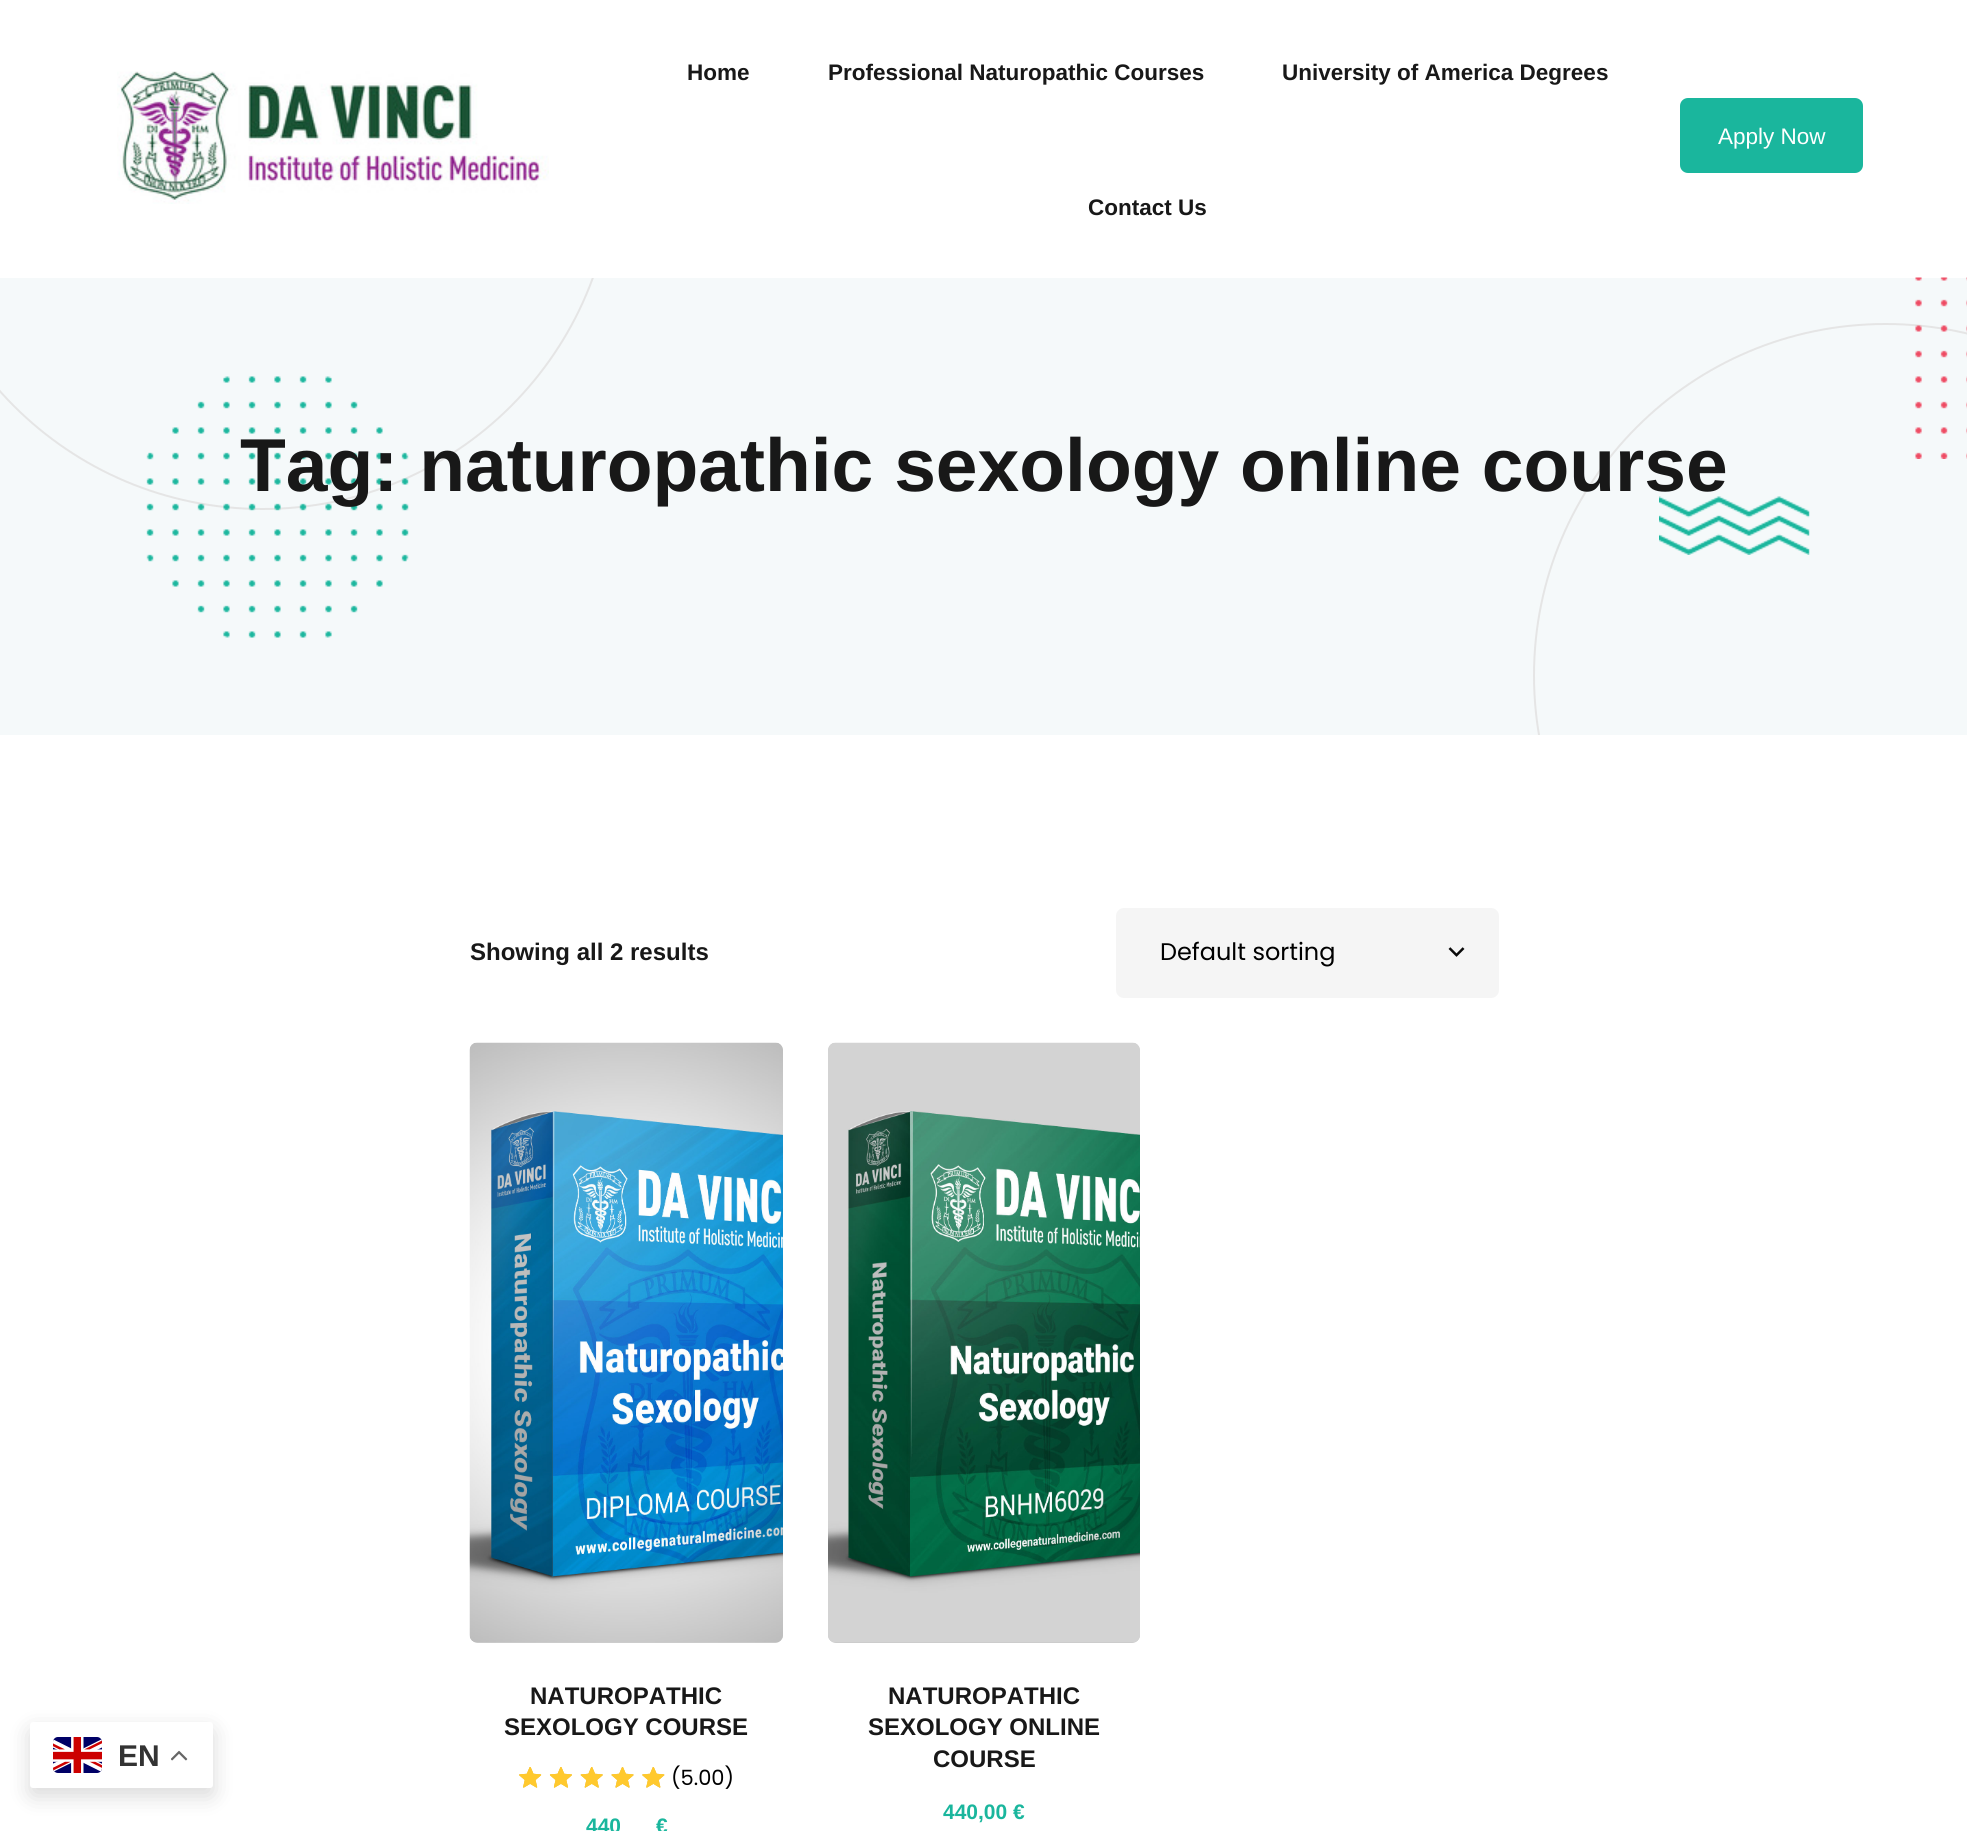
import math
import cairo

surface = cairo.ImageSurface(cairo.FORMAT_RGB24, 1967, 1831)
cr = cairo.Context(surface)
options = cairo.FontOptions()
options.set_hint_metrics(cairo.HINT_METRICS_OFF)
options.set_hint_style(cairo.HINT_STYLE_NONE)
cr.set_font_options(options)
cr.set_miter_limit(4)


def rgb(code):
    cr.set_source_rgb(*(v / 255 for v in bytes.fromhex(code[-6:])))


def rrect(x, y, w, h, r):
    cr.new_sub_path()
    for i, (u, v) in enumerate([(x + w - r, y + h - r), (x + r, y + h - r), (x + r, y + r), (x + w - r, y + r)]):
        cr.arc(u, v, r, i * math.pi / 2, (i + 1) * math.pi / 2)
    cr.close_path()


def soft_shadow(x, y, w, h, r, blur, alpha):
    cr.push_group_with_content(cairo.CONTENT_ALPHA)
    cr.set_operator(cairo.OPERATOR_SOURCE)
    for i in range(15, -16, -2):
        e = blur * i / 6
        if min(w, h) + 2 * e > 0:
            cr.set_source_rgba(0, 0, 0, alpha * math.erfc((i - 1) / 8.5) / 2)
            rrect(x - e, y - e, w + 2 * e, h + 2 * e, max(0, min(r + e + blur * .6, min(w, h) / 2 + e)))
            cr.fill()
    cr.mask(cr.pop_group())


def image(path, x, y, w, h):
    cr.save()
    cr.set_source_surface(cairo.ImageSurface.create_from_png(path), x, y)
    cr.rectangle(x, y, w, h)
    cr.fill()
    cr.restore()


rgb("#ffffff")
cr.paint()
rgb("#000000")
soft_shadow(30, 1730, 183, 66, 3, 11, 0.15)
rgb("#ffffff")
rrect(30, 1722, 183, 66, 3)
cr.fill()
image("img/1.png", 53, 1737, 49, 36)
image("img/2.png", 171, 1750, 17, 11)
rgb("#f5f9fa")
cr.rectangle(0, 278, 1967, 457)
cr.fill()
cr.save()
cr.rectangle(0, 278, 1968, 457)
cr.clip()
cr.arc(262.5, 157.5, 351.5, 0, 2 * math.pi)
rgb("#e5e5e5")
cr.stroke()
cr.restore()
image("img/3.png", 117, 71, 432, 133)
rgb("#1ab69d")
rrect(1680, 98, 183, 75, 8)
cr.fill()
cr.save()
cr.rectangle(0, 278, 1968, 457)
cr.clip()
cr.arc(1885.5, 675.5, 351.5, 0, 2 * math.pi)
rgb("#e5e5e5")
cr.stroke()
cr.restore()
image("img/4.png", 1915, 277, 52, 182)
image("img/5.png", 146, 376, 263, 262)
image("img/6.png", 1659, 496, 151, 59)
rgb("#f5f5f5")
rrect(1116, 908, 383, 90, 8)
cr.fill()
image("img/7.png", 1448, 947, 17, 10)
rgb("#cccccc")
rrect(470, 1043, 313, 600, 8)
cr.fill()
image("img/8.png", 469, 1042, 314, 601)
image("img/9.png", 519, 1767, 146, 21)
image("img/10.png", 519, 1767, 146, 21)
image("img/11.png", 519, 1767, 146, 21)
rrect(828, 1043, 312, 600, 8)
cr.fill()
image("img/12.png", 828, 1042, 312, 600)
cr.select_font_face("Liberation Sans", cairo.FONT_SLANT_NORMAL, cairo.FONT_WEIGHT_BOLD)
cr.set_font_size(30)
rgb("#333333")
cr.move_to(118, 1766)
cr.show_text("EN")
cr.set_font_size(22.5)
rgb("#181818")
for x, y, s in [
    (687, 80, "Home"),
    (828, 80, "Professional Naturopathic Courses"),
    (1282, 80, "University of America Degrees"),
    (1088, 215, "Contact Us"),
]:
    cr.move_to(x, y)
    cr.show_text(s)
cr.select_font_face("Liberation Sans")
rgb("#ffffff")
cr.move_to(1718, 144)
cr.show_text("Apply Now")
cr.select_font_face("Liberation Sans", cairo.FONT_SLANT_NORMAL, cairo.FONT_WEIGHT_BOLD)
cr.set_font_size(75)
rgb("#181818")
cr.move_to(240, 491)
cr.show_text("Tag: naturopathic sexology online course")
cr.set_font_size(24)
cr.move_to(470, 960)
cr.show_text("Showing all 2 results")
cr.select_font_face("Poppins")
rgb("#000000")
cr.move_to(1160, 960)
cr.show_text("Default sorting")
cr.select_font_face("Liberation Sans", cairo.FONT_SLANT_NORMAL, cairo.FONT_WEIGHT_BOLD)
rgb("#181818")
cr.move_to(530, 1704)
cr.show_text("NATUROPATHIC")
cr.move_to(504, 1735)
cr.show_text("SEXOLOGY COURSE")
cr.select_font_face("Poppins")
cr.set_font_size(21)
rgb("#000000")
cr.move_to(671, 1785)
cr.show_text("(5.00)")
cr.select_font_face("Liberation Sans", cairo.FONT_SLANT_NORMAL, cairo.FONT_WEIGHT_BOLD)
rgb("#1ab69d")
cr.move_to(586, 1833)
cr.show_text("440")
cr.move_to(656, 1833)
cr.show_text("€")
cr.set_font_size(24)
rgb("#181818")
for x, y, s in [
    (888, 1704, "NATUROPATHIC"),
    (868, 1735, "SEXOLOGY ONLINE"),
    (933, 1767, "COURSE"),
]:
    cr.move_to(x, y)
    cr.show_text(s)
cr.set_font_size(21)
rgb("#1ab69d")
cr.move_to(943, 1819)
cr.show_text("440,00 €")
surface.write_to_png("page.png")
